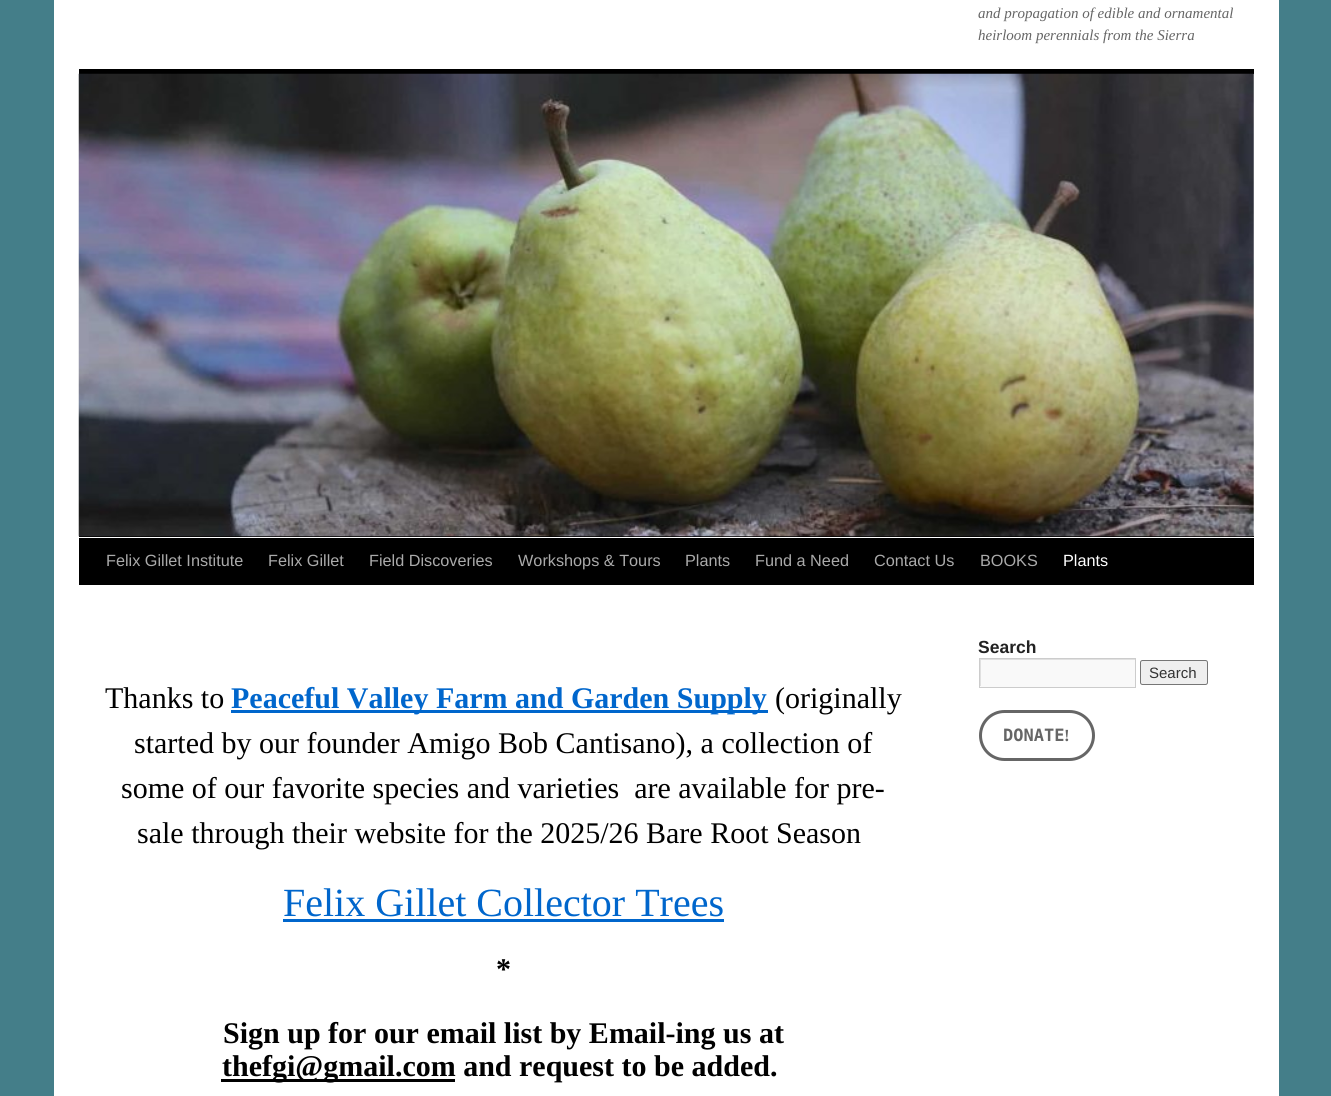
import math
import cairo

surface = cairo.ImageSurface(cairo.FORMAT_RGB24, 1331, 1096)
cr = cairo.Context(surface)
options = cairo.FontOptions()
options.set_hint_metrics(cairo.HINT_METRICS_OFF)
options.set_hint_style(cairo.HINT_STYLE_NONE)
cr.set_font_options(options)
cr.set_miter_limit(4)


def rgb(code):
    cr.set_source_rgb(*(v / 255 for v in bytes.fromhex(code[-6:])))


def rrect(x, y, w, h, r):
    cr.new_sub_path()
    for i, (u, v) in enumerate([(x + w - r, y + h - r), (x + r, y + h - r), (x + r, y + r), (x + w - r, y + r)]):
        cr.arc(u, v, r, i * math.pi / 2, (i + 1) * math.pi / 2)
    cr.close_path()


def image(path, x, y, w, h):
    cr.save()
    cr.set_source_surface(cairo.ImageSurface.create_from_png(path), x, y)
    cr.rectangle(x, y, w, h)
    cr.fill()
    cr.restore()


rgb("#447e89")
cr.paint()
for x, y, w, h, color in [
    (54, 0, 1225, 1096, "#ffffff"),
    (79, 69, 1175, 5, "#000000"),
    (79, 536, 1175, 1, "#000000"),
]:
    rgb(color)
    cr.rectangle(x, y, w, h)
    cr.fill()
image("img/1.png", 78, 73, 1176, 464)
for x, y, w, h, color in [
    (79, 538, 1175, 47, "#000000"),
    (231, 710, 537, 3, "#0066cc"),
    (283, 919, 441, 3, "#0066cc"),
    (221, 1079, 234, 3, "#000000"),
    (980, 660, 155, 27, "#f9f9f9"),
]:
    rgb(color)
    cr.rectangle(x, y, w, h)
    cr.fill()
cr.save()
cr.rectangle(980, 659, 155, 27)
cr.clip()
rgb("#e0e0e0")
cr.set_fill_rule(cairo.FILL_RULE_EVEN_ODD)
cr.new_path()
cr.move_to(856, 535)
cr.line_to(1259, 535)
cr.line_to(1259, 810)
cr.line_to(856, 810)
cr.close_path()
cr.move_to(981, 660)
cr.line_to(1136, 660)
cr.line_to(1136, 688)
cr.line_to(981, 688)
cr.close_path()
cr.fill()
cr.restore()
cr.rectangle(979.5, 658.5, 156, 29)
rgb("#cccccc")
cr.set_line_width(1)
cr.stroke()
rgb("#efefef")
rrect(1140.5, 660.5, 67, 24, 2)
cr.fill_preserve()
rgb("#767676")
cr.stroke()
rrect(980.5, 711.5, 113, 48, 24)
rgb("#666666")
cr.set_line_width(3)
cr.stroke()
cr.select_font_face("Liberation Serif", cairo.FONT_SLANT_ITALIC)
cr.set_font_size(15)
cr.move_to(978, 18)
cr.show_text("and propagation of edible and ornamental")
cr.move_to(978, 40)
cr.show_text("heirloom perennials from the Sierra")
cr.select_font_face("Liberation Sans")
cr.set_font_size(16.25)
rgb("#aaaaaa")
for x, y, s in [
    (106, 566, "Felix Gillet Institute"),
    (268, 566, "Felix Gillet"),
    (369, 566, "Field Discoveries"),
    (518, 566, "Workshops & Tours"),
    (685, 566, "Plants"),
    (755, 566, "Fund a Need"),
    (874, 566, "Contact Us"),
    (980, 566, "BOOKS"),
]:
    cr.move_to(x, y)
    cr.show_text(s)
rgb("#ffffff")
cr.move_to(1063, 566)
cr.show_text("Plants")
cr.select_font_face("Liberation Serif")
cr.set_font_size(30)
rgb("#000000")
cr.move_to(105, 708)
cr.show_text("Thanks to")
cr.select_font_face("Liberation Serif", cairo.FONT_SLANT_NORMAL, cairo.FONT_WEIGHT_BOLD)
rgb("#0066cc")
cr.move_to(231, 708)
cr.show_text("Peaceful Valley Farm and Garden Supply")
cr.select_font_face("Liberation Serif")
rgb("#000000")
for x, y, s in [
    (775, 708, "(originally"),
    (134, 753, "started by our founder Amigo Bob Cantisano), a collection of"),
    (121, 798, "some of our favorite species and varieties  are available for pre-"),
    (137, 843, "sale through their website for the 2025/26 Bare Root Season"),
]:
    cr.move_to(x, y)
    cr.show_text(s)
cr.set_font_size(40)
rgb("#0066cc")
cr.move_to(283, 916)
cr.show_text("Felix Gillet Collector Trees")
cr.select_font_face("Liberation Serif", cairo.FONT_SLANT_NORMAL, cairo.FONT_WEIGHT_BOLD)
cr.set_font_size(30)
rgb("#000000")
for x, y, s in [
    (496, 979, "*"),
    (223, 1043, "Sign up for our email list by Email-ing us at"),
    (222, 1076, "thefgi@gmail.com and request to be added."),
]:
    cr.move_to(x, y)
    cr.show_text(s)
cr.select_font_face("Liberation Sans", cairo.FONT_SLANT_NORMAL, cairo.FONT_WEIGHT_BOLD)
cr.set_font_size(17.5)
rgb("#222222")
cr.move_to(978, 653)
cr.show_text("Search")
cr.select_font_face("Liberation Sans")
cr.set_font_size(15)
rgb("#333333")
cr.move_to(1149, 678)
cr.show_text("Search")
cr.select_font_face("DejaVu Sans Mono", cairo.FONT_SLANT_NORMAL, cairo.FONT_WEIGHT_BOLD)
cr.set_font_size(17)
rgb("#666666")
cr.move_to(1003, 741)
cr.show_text("DONATE")
cr.select_font_face("Liberation Serif", cairo.FONT_SLANT_NORMAL, cairo.FONT_WEIGHT_BOLD)
cr.move_to(1064, 741)
cr.show_text("!")
surface.write_to_png("page.png")
